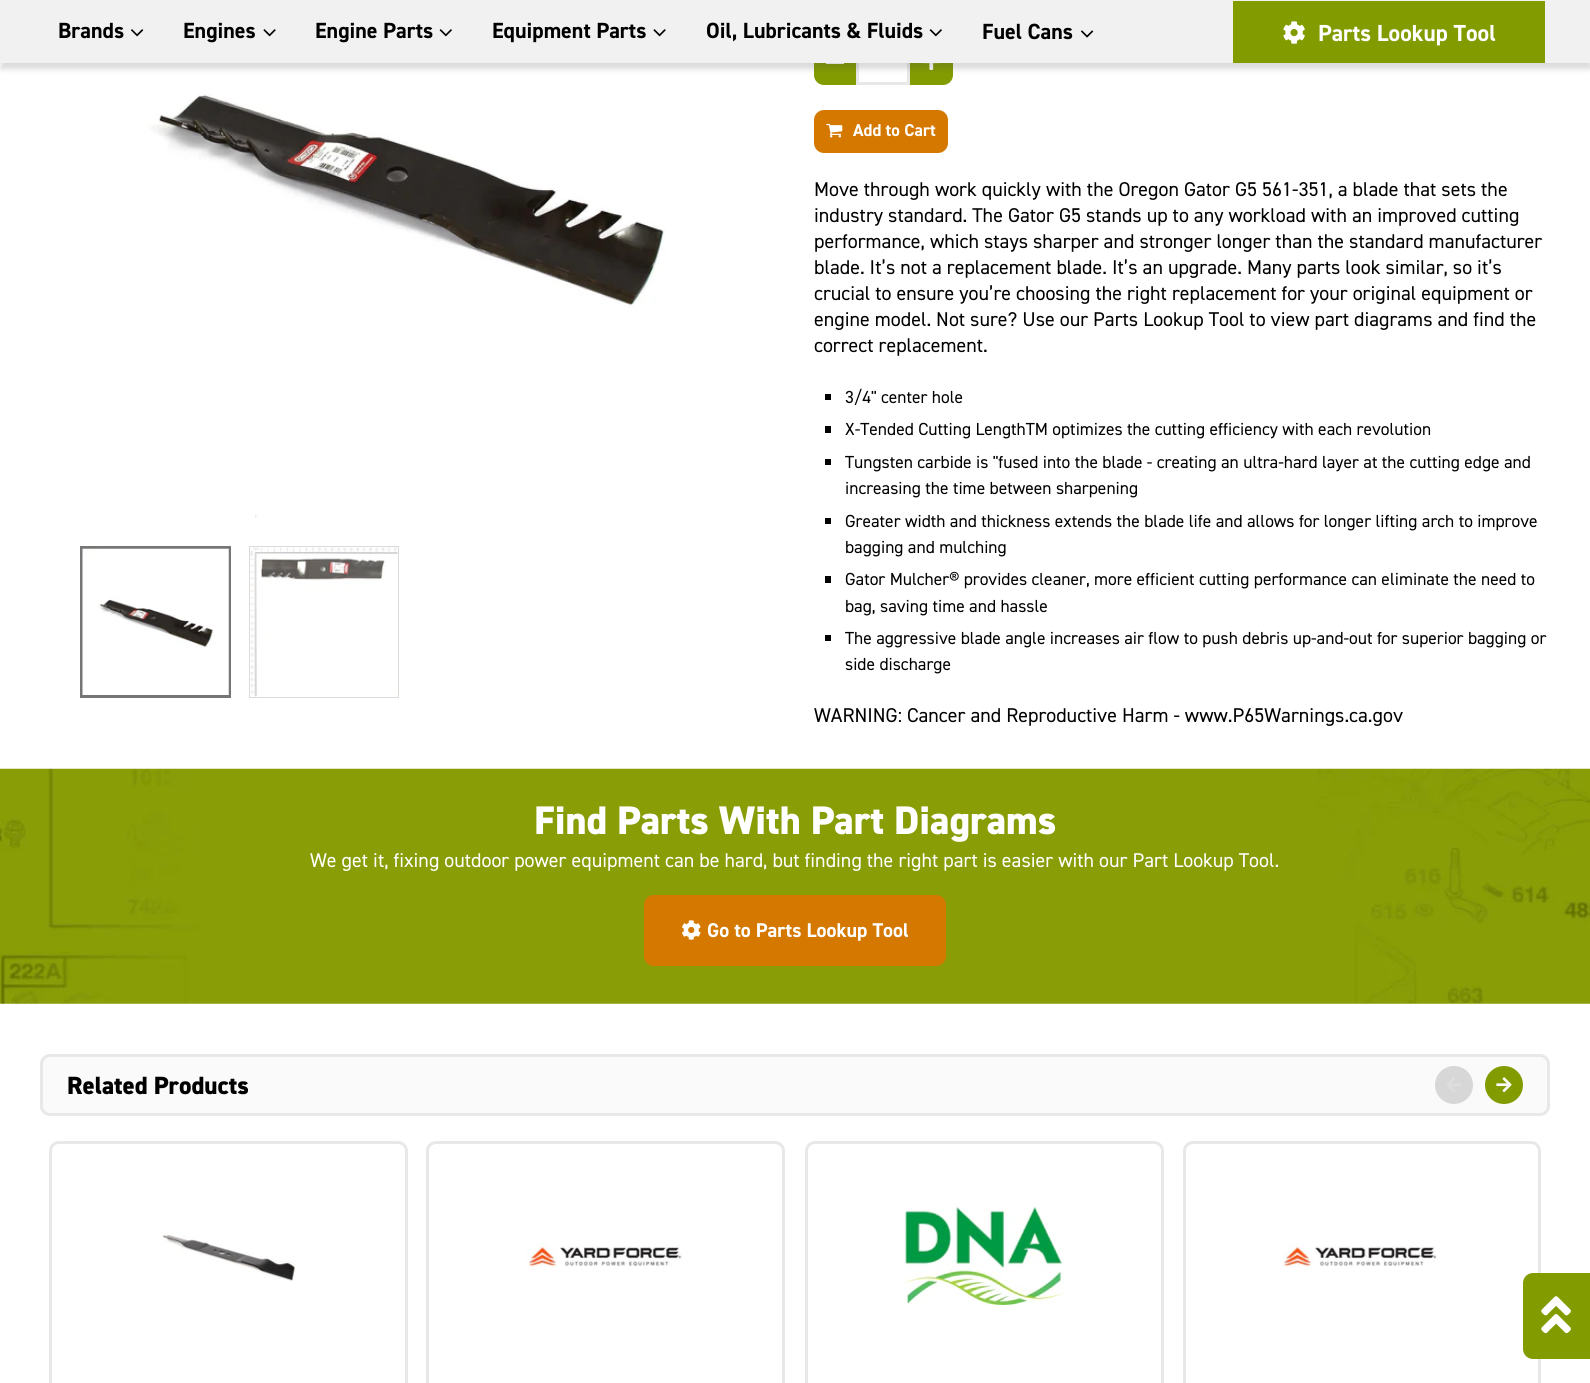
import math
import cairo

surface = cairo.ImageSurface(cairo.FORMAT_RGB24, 1590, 1383)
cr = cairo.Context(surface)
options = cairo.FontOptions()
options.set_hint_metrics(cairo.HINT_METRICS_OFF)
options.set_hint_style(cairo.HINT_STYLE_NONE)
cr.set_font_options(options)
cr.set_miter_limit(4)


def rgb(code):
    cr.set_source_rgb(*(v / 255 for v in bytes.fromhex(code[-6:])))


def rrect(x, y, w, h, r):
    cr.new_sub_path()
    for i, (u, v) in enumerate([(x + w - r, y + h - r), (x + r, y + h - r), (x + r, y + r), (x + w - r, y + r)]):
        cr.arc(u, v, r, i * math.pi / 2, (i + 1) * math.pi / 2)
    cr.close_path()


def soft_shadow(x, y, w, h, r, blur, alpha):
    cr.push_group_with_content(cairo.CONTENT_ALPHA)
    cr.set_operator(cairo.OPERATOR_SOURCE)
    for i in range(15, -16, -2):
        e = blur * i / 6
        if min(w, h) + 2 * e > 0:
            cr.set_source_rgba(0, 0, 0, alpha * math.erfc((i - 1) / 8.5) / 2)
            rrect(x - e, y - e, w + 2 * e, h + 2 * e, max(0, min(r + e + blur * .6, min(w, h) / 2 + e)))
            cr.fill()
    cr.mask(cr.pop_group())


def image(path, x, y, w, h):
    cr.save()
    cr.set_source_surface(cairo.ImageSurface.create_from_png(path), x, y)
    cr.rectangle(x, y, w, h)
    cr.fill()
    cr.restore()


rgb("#ffffff")
cr.paint()
rgb("#829c00")
cr.new_path()
cr.move_to(824, 39)
cr.line_to(856, 39)
cr.line_to(856, 85)
cr.line_to(824, 85)
cr.curve_to(818.5, 85, 814, 80.5, 814, 75)
cr.line_to(814, 49)
cr.curve_to(814, 43.5, 818.5, 39, 824, 39)
cr.close_path()
cr.fill()
rgb("#ffffff")
cr.rectangle(826, 63, 18, 1)
cr.fill()
cr.rectangle(857.5, 40.5, 51, 43)
rgb("#e8e8e8")
cr.set_line_width(3)
cr.stroke()
rgb("#829c00")
cr.new_path()
cr.move_to(910, 39)
cr.line_to(943, 39)
cr.curve_to(948.5, 39, 953, 43.5, 953, 49)
cr.line_to(953, 75)
cr.curve_to(953, 80.5, 948.5, 85, 943, 85)
cr.line_to(910, 85)
cr.close_path()
cr.fill()
image("img/9.png", 923, 63, 16, 7)
rgb("#444444")
soft_shadow(1, 6, 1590, 63, 0, 3, 0.2)
rgb("#f1f1f1")
cr.rectangle(0, 0, 1590, 63)
cr.fill()
image("img/1.png", 131, 29, 13, 8)
image("img/2.png", 263, 29, 13, 8)
image("img/3.png", 439, 29, 13, 8)
image("img/2.png", 653, 29, 13, 8)
image("img/3.png", 929, 29, 13, 8)
image("img/4.png", 1081, 30, 13, 8)
rgb("#829c00")
cr.rectangle(1233, 1, 312, 62)
cr.fill()
image("img/5.png", 1283, 21, 22, 23)
image("img/6.png", 148, 94, 518, 424)
cr.rectangle(81.5, 547.5, 148, 149)
rgb("#767676")
cr.stroke()
image("img/7.png", 82, 548, 147, 147)
cr.rectangle(249.5, 546.5, 149, 151)
rgb("#dbdbdb")
cr.set_line_width(1)
cr.stroke()
image("img/8.png", 250, 547, 148, 150)
rgb("#d57800")
rrect(814, 110, 134, 43, 10)
cr.fill()
image("img/10.png", 826, 123, 17, 15)
for x, y, w, h, color in [
    (825, 394, 6, 6, "#000000"),
    (825, 426, 6, 7, "#000000"),
    (825, 459, 6, 6, "#000000"),
    (825, 518, 6, 6, "#000000"),
    (825, 576, 6, 7, "#000000"),
    (825, 635, 6, 6, "#000000"),
]:
    rgb(color)
    cr.rectangle(x, y, w, h)
    cr.fill()
image("img/11.png", 0, 768, 1590, 236)
rgb("#d57800")
rrect(644, 895, 302, 71, 10)
cr.fill()
image("img/12.png", 682, 920, 19, 20)
rgb("#fafafa")
rrect(41.5, 1055.5, 1507, 59, 8.5)
cr.fill_preserve()
rgb("#e8e8e8")
cr.set_line_width(3)
cr.stroke()
rgb("#d7d7d7")
cr.arc(1454, 1085, 19, 0, 2 * math.pi)
cr.fill()
image("img/13.png", 1446, 1077, 15, 15)
rgb("#829c00")
cr.arc(1504, 1085, 19, 0, 2 * math.pi)
cr.fill()
image("img/14.png", 1496, 1077, 16, 16)
rrect(50.5, 1142.5, 356, 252, 8.5)
rgb("#e8e8e8")
cr.stroke()
image("img/15.png", 162, 1233, 134, 48)
rrect(427.5, 1142.5, 356, 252, 8.5)
cr.stroke()
image("img/16.png", 526, 1243, 156, 24)
rrect(806.5, 1142.5, 356, 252, 8.5)
cr.stroke()
image("img/17.png", 903, 1207, 161, 98)
rrect(1184.5, 1142.5, 355, 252, 8.5)
cr.stroke()
image("img/16.png", 1281, 1243, 156, 24)
rgb("#829c00")
cr.new_path()
cr.move_to(1533, 1273)
cr.line_to(1590, 1273)
cr.line_to(1590, 1359)
cr.line_to(1533, 1359)
cr.curve_to(1527.5, 1359, 1523, 1354.5, 1523, 1349)
cr.line_to(1523, 1283)
cr.curve_to(1523, 1277.5, 1527.5, 1273, 1533, 1273)
cr.close_path()
cr.fill()
image("img/18.png", 1541, 1296, 30, 38)
cr.select_font_face("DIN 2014", cairo.FONT_SLANT_NORMAL, cairo.FONT_WEIGHT_BOLD)
cr.set_font_size(22)
rgb("#000000")
for x, y, s in [
    (58, 38, "Brands"),
    (183, 38, "Engines"),
    (315, 38, "Engine Parts"),
    (492, 38, "Equipment Parts"),
    (706, 38, "Oil, Lubricants & Fluids"),
    (982, 39, "Fuel Cans"),
]:
    cr.move_to(x, y)
    cr.show_text(s)
cr.set_font_size(23.25)
rgb("#ffffff")
cr.move_to(1318, 41)
cr.show_text("Parts Lookup Tool")
cr.set_font_size(17.25)
cr.move_to(853, 136)
cr.show_text("Add to Cart")
cr.select_font_face("DIN 2014")
cr.set_font_size(20)
rgb("#000000")
for x, y, s in [
    (814, 196, "Move through work quickly with the Oregon Gator G5 561-351, a blade that sets the"),
    (814, 222, "industry standard. The Gator G5 stands up to any workload with an improved cutting"),
    (814, 248, "performance, which stays sharper and stronger longer than the standard manufacturer"),
    (814, 274, "blade. It’s not a replacement blade. It’s an upgrade. Many parts look similar, so it’s"),
    (814, 300, "crucial to ensure you’re choosing the right replacement for your original equipment or"),
    (814, 326, "engine model. Not sure? Use our Parts Lookup Tool to view part diagrams and find the"),
    (814, 352, "correct replacement."),
]:
    cr.move_to(x, y)
    cr.show_text(s)
cr.set_font_size(17.5)
for x, y, s in [
    (845, 403, "3/4\" center hole"),
    (845, 435, "X-Tended Cutting LengthTM optimizes the cutting efficiency with each revolution"),
    (845, 468, "Tungsten carbide is \"fused into the blade - creating an ultra-hard layer at the cutting edge and"),
    (845, 494, "increasing the time between sharpening"),
    (845, 527, "Greater width and thickness extends the blade life and allows for longer lifting arch to improve"),
    (845, 553, "bagging and mulching"),
    (845, 585, "Gator Mulcher® provides cleaner, more efficient cutting performance can eliminate the need to"),
    (845, 612, "bag, saving time and hassle"),
    (845, 644, "The aggressive blade angle increases air flow to push debris up-and-out for superior bagging or"),
    (845, 670, "side discharge"),
]:
    cr.move_to(x, y)
    cr.show_text(s)
cr.set_font_size(20)
cr.move_to(814, 722)
cr.show_text("WARNING: Cancer and Reproductive Harm - www.P65Warnings.ca.gov")
cr.select_font_face("DIN 2014 ExtraBold")
cr.set_font_size(40)
rgb("#ffffff")
cr.move_to(534, 834)
cr.show_text("Find Parts With Part Diagrams")
cr.select_font_face("DIN 2014")
cr.set_font_size(20)
cr.move_to(310, 867)
cr.show_text("We get it, fixing outdoor power equipment can be hard, but finding the right part is easier with our Part Lookup Tool.")
cr.select_font_face("DIN 2014", cairo.FONT_SLANT_NORMAL, cairo.FONT_WEIGHT_BOLD)
cr.move_to(707, 937)
cr.show_text("Go to Parts Lookup Tool")
cr.select_font_face("DIN 2014 ExtraBold")
cr.set_font_size(25)
rgb("#000000")
cr.move_to(67, 1094)
cr.show_text("Related Products")
surface.write_to_png("page.png")
